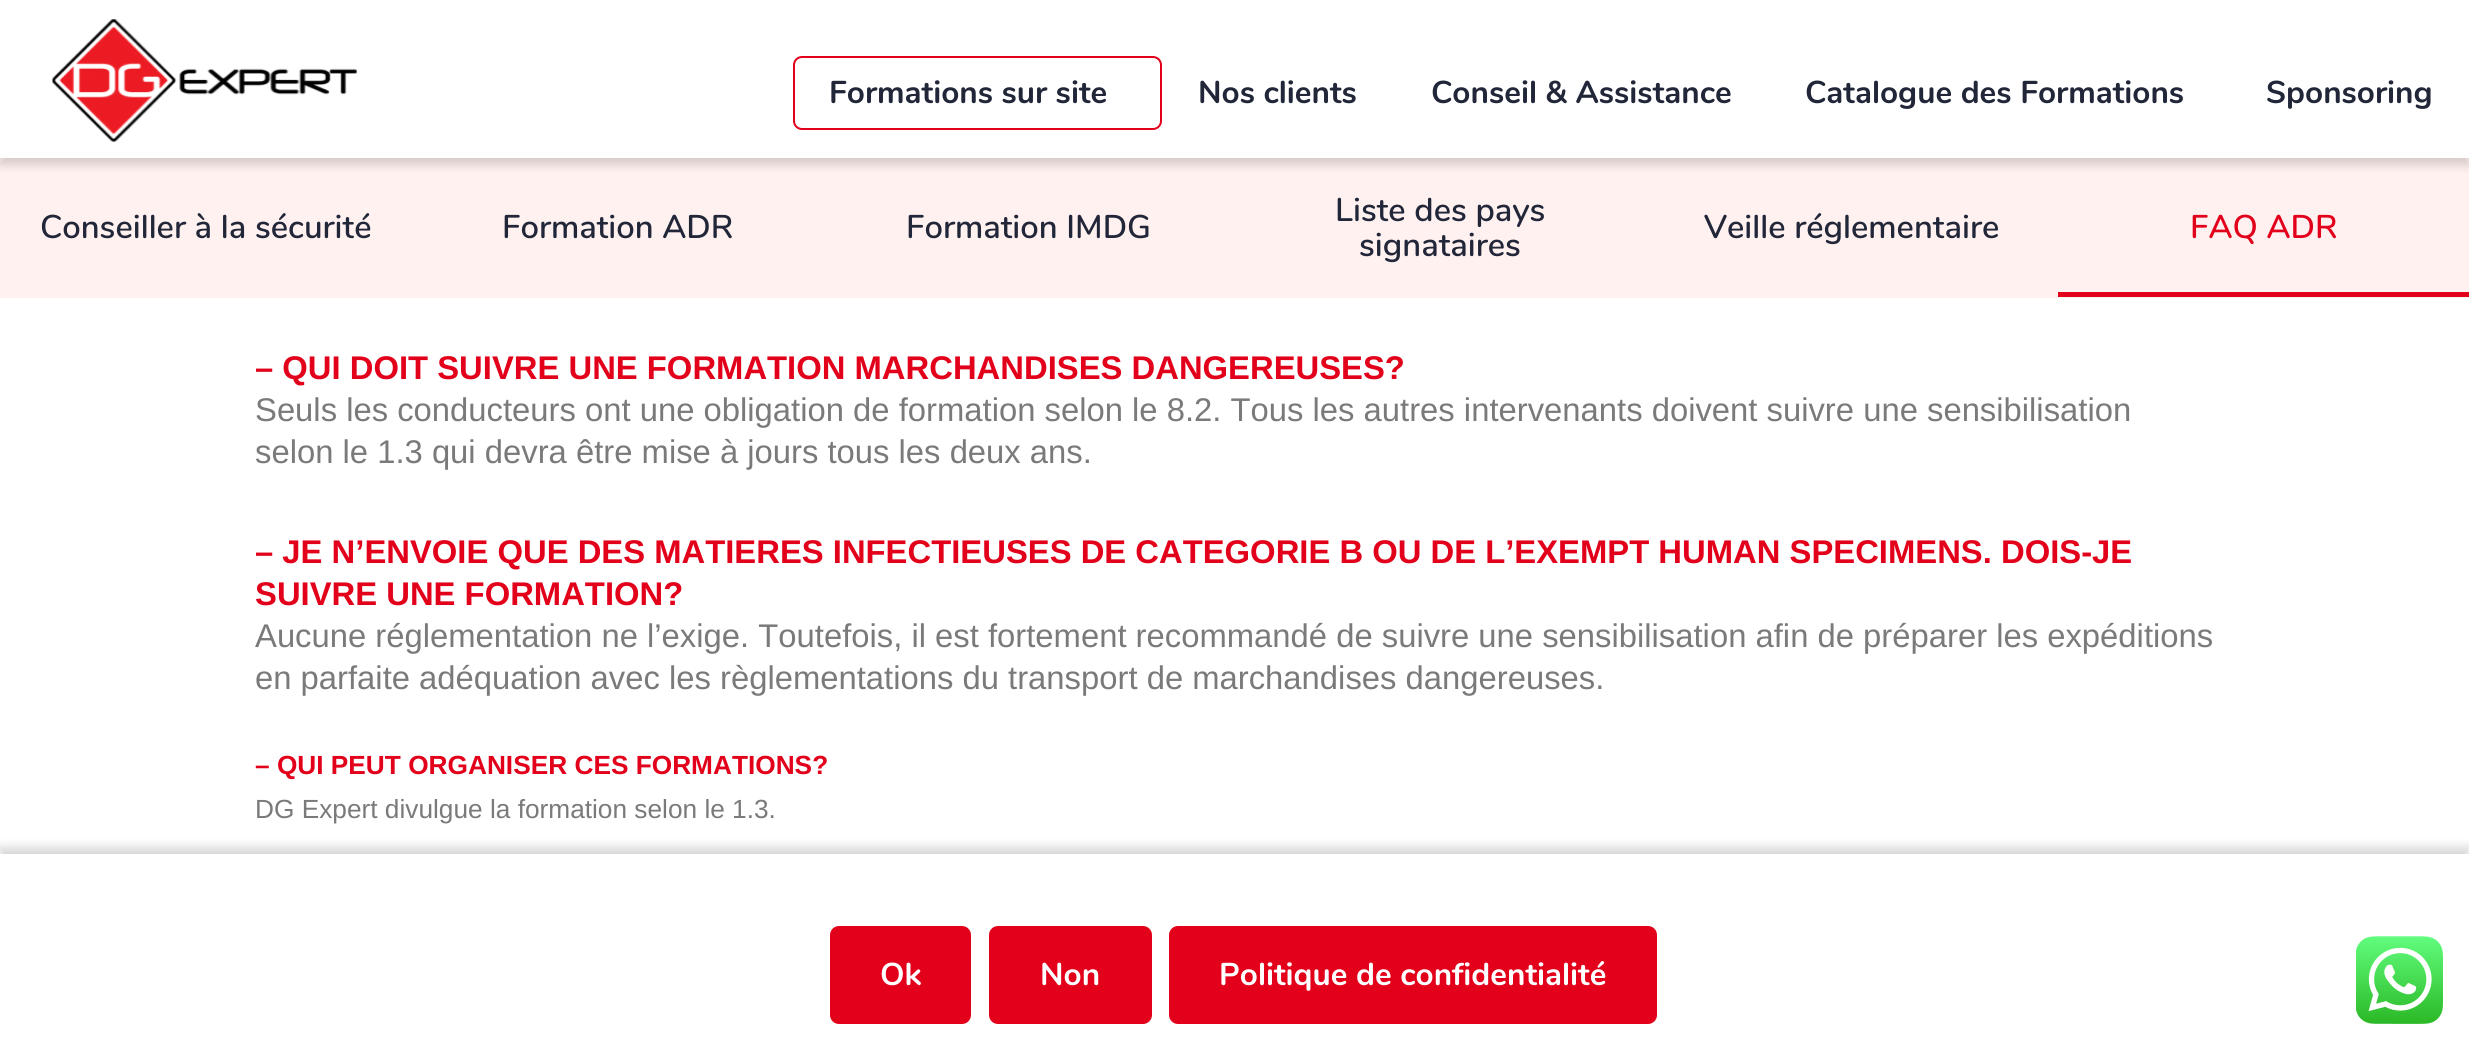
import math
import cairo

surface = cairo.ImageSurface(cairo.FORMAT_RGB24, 2469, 1049)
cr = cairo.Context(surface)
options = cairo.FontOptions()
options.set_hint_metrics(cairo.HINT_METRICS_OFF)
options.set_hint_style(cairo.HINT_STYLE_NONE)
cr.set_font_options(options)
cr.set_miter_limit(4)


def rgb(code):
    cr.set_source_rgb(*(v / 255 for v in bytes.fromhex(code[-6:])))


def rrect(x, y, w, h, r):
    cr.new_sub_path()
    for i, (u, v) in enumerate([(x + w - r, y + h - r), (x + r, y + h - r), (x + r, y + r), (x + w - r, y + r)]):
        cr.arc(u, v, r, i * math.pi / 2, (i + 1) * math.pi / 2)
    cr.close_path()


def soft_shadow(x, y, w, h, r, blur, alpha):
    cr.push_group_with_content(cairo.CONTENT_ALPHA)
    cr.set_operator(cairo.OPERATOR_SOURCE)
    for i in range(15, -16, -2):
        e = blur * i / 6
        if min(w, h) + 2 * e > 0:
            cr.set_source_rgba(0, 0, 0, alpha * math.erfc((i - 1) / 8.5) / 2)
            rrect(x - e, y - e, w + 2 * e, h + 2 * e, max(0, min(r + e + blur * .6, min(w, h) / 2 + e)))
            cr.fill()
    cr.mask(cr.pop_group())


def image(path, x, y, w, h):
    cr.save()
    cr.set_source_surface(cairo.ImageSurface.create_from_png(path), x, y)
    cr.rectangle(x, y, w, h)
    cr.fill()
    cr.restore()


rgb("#ffffff")
cr.paint()
rgb("#fff1f0")
cr.rectangle(0, 158, 2469, 140)
cr.fill()
rgb("#000000")
soft_shadow(0, 7, 2469, 158, 0, 5, 0.16)
rgb("#ffffff")
cr.rectangle(0, 0, 2469, 158)
cr.fill()
image("img/1.png", 52, 19, 305, 123)
rrect(794, 57, 367, 72, 8)
rgb("#e2001a")
cr.stroke()
cr.rectangle(2058, 292, 411, 5)
cr.fill()
rgb("#000000")
soft_shadow(0, 847, 2469, 196, 0, 5, 0.16)
rgb("#ffffff")
cr.rectangle(0, 854, 2469, 195)
cr.fill()
rgb("#e2001a")
rrect(831, 927, 139, 96, 8)
cr.fill_preserve()
cr.stroke()
rrect(990, 927, 161, 96, 8)
cr.fill_preserve()
cr.stroke()
rrect(1170, 927, 486, 96, 8)
cr.fill_preserve()
cr.stroke()
image("img/2.png", 2356, 936, 87, 88)
cr.select_font_face("Nunito", cairo.FONT_SLANT_NORMAL, cairo.FONT_WEIGHT_BOLD)
cr.set_font_size(31.5)
rgb("#212638")
for x, y, s in [
    (829, 103, "Formations sur site"),
    (1198, 103, "Nos clients"),
    (1431, 103, "Conseil & Assistance"),
    (1805, 103, "Catalogue des Formations"),
    (2266, 103, "Sponsoring"),
]:
    cr.move_to(x, y)
    cr.show_text(s)
cr.select_font_face("Nunito SemiBold")
cr.set_font_size(32.8)
for x, y, s in [
    (40, 238, "Conseiller à la sécurité"),
    (502, 238, "Formation ADR"),
    (906, 238, "Formation IMDG"),
    (1335, 221, "Liste des pays"),
    (1359, 256, "signataires"),
    (1704, 238, "Veille réglementaire"),
]:
    cr.move_to(x, y)
    cr.show_text(s)
rgb("#e2001a")
cr.move_to(2190, 238)
cr.show_text("FAQ ADR")
cr.select_font_face("Liberation Sans", cairo.FONT_SLANT_NORMAL, cairo.FONT_WEIGHT_BOLD)
cr.move_to(255, 379)
cr.show_text("– QUI DOIT SUIVRE UNE FORMATION MARCHANDISES DANGEREUSES?")
cr.select_font_face("Liberation Sans")
rgb("#7a7a7a")
cr.move_to(255, 421)
cr.show_text("Seuls les conducteurs ont une obligation de formation selon le 8.2. Tous les autres intervenants doivent suivre une sensibilisation")
cr.move_to(255, 463)
cr.show_text("selon le 1.3 qui devra être mise à jours tous les deux ans.")
cr.select_font_face("Liberation Sans", cairo.FONT_SLANT_NORMAL, cairo.FONT_WEIGHT_BOLD)
rgb("#e2001a")
cr.move_to(255, 563)
cr.show_text("– JE N’ENVOIE QUE DES MATIERES INFECTIEUSES DE CATEGORIE B OU DE L’EXEMPT HUMAN SPECIMENS. DOIS-JE")
cr.move_to(255, 605)
cr.show_text("SUIVRE UNE FORMATION?")
cr.select_font_face("Liberation Sans")
rgb("#7a7a7a")
cr.move_to(255, 647)
cr.show_text("Aucune réglementation ne l’exige. Toutefois, il est fortement recommandé de suivre une sensibilisation afin de préparer les expéditions")
cr.move_to(255, 689)
cr.show_text("en parfaite adéquation avec les règlementations du transport de marchandises dangereuses.")
cr.select_font_face("Liberation Sans", cairo.FONT_SLANT_NORMAL, cairo.FONT_WEIGHT_BOLD)
cr.set_font_size(26.25)
rgb("#e2001a")
cr.move_to(255, 774)
cr.show_text("– QUI PEUT ORGANISER CES FORMATIONS?")
cr.select_font_face("Liberation Sans")
rgb("#7a7a7a")
cr.move_to(255, 818)
cr.show_text("DG Expert divulgue la formation selon le 1.3.")
cr.select_font_face("Nunito", cairo.FONT_SLANT_NORMAL, cairo.FONT_WEIGHT_BOLD)
cr.set_font_size(31.5)
rgb("#ffffff")
for x, y, s in [
    (880, 985, "Ok"),
    (1040, 985, "Non"),
    (1219, 985, "Politique de confidentialité"),
]:
    cr.move_to(x, y)
    cr.show_text(s)
surface.write_to_png("page.png")
